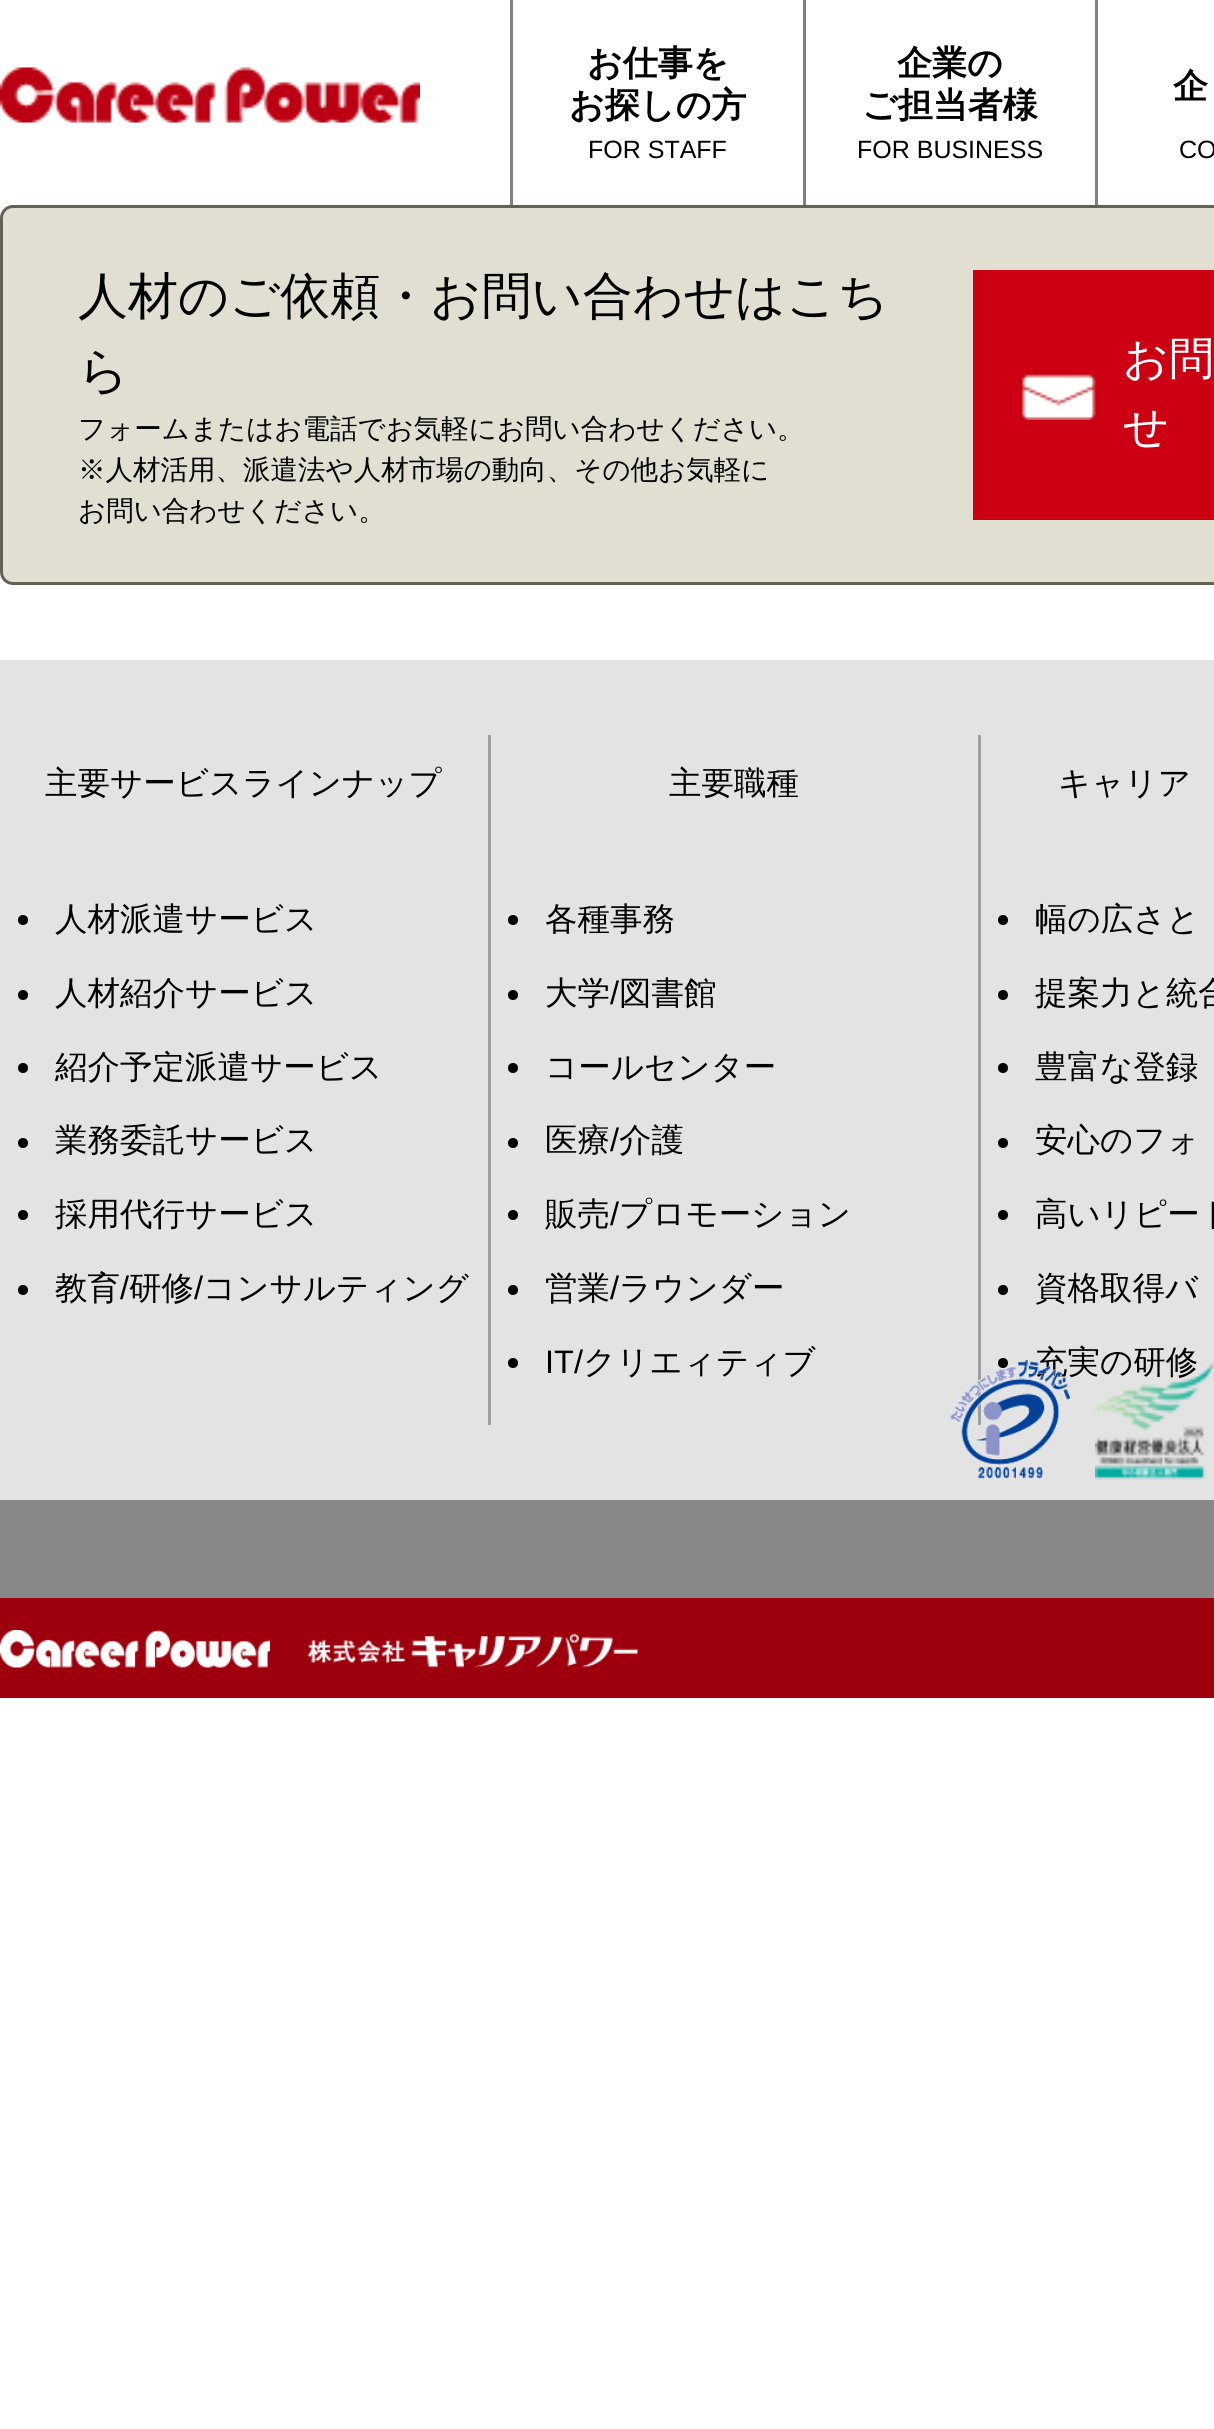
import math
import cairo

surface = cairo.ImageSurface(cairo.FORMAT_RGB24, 1214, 2429)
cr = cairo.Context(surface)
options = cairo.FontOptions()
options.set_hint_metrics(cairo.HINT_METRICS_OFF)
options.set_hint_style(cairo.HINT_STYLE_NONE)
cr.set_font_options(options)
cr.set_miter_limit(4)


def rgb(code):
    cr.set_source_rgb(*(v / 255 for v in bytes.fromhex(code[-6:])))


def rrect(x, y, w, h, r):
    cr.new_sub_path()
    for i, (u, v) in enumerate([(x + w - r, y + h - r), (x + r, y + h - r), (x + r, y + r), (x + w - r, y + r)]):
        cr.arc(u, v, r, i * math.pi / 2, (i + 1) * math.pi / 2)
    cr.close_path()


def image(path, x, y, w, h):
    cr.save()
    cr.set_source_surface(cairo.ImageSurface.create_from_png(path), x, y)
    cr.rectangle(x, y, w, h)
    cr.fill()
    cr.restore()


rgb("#ffffff")
cr.paint()
image("img/1.png", 0, 67, 420, 56)
for x, y, w, h, color in [
    (510, 0, 3, 205, "#808080"),
    (803, 0, 3, 205, "#808080"),
    (1095, 0, 3, 205, "#808080"),
]:
    rgb(color)
    cr.rectangle(x, y, w, h)
    cr.fill()
rgb("#e1dfd1")
rrect(1.5, 206.5, 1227, 377, 11.5)
cr.fill_preserve()
rgb("#616154")
cr.set_line_width(3)
cr.stroke()
rgb("#cc0012")
cr.rectangle(973, 270, 241, 250)
cr.fill()
image("img/2.png", 1020, 372, 76, 48)
rgb("#e3e3e3")
cr.rectangle(0, 660, 1214, 840)
cr.fill()
rgb("#9d9e9f")
cr.rectangle(488, 735, 3, 690)
cr.fill()
rgb("#000000")
cr.arc(23, 920, 5, 0, 2 * math.pi)
cr.fill()
cr.arc(23, 995, 5, 0, 2 * math.pi)
cr.fill()
cr.arc(23, 1068, 5, 0, 2 * math.pi)
cr.fill()
cr.arc(23, 1143, 5, 0, 2 * math.pi)
cr.fill()
cr.arc(23, 1215, 5, 0, 2 * math.pi)
cr.fill()
cr.arc(23, 1290, 5, 0, 2 * math.pi)
cr.fill()
rgb("#9d9e9f")
cr.rectangle(978, 735, 3, 690)
cr.fill()
rgb("#000000")
cr.arc(513, 920, 5, 0, 2 * math.pi)
cr.fill()
cr.arc(513, 995, 5, 0, 2 * math.pi)
cr.fill()
cr.arc(513, 1068, 5, 0, 2 * math.pi)
cr.fill()
cr.arc(513, 1143, 5, 0, 2 * math.pi)
cr.fill()
cr.arc(513, 1215, 5, 0, 2 * math.pi)
cr.fill()
cr.arc(513, 1290, 5, 0, 2 * math.pi)
cr.fill()
cr.arc(513, 1363, 5, 0, 2 * math.pi)
cr.fill()
cr.arc(1003, 920, 5, 0, 2 * math.pi)
cr.fill()
cr.arc(1003, 995, 5, 0, 2 * math.pi)
cr.fill()
cr.arc(1003, 1068, 5, 0, 2 * math.pi)
cr.fill()
cr.arc(1003, 1143, 5, 0, 2 * math.pi)
cr.fill()
cr.arc(1003, 1215, 5, 0, 2 * math.pi)
cr.fill()
cr.arc(1003, 1290, 5, 0, 2 * math.pi)
cr.fill()
cr.arc(1003, 1363, 5, 0, 2 * math.pi)
cr.fill()
rgb("#888889")
cr.rectangle(0, 1500, 1214, 98)
cr.fill()
rgb("#9d000c")
cr.rectangle(0, 1598, 1214, 100)
cr.fill()
image("img/5.png", 0, 1630, 270, 38)
image("img/6.png", 307, 1633, 331, 35)
cr.select_font_face("WenQuanYi Zen Hei", cairo.FONT_SLANT_NORMAL, cairo.FONT_WEIGHT_BOLD)
cr.set_font_size(35)
rgb("#000000")
cr.move_to(587, 75)
cr.show_text("お仕事を")
cr.move_to(569, 117)
cr.show_text("お探しの方")
cr.select_font_face("Liberation Sans")
cr.set_font_size(25)
cr.move_to(588, 158)
cr.show_text("FOR STAFF")
cr.select_font_face("WenQuanYi Zen Hei", cairo.FONT_SLANT_NORMAL, cairo.FONT_WEIGHT_BOLD)
cr.set_font_size(35)
cr.move_to(897, 75)
cr.show_text("企業の")
cr.move_to(862, 117)
cr.show_text("ご担当者様")
cr.select_font_face("Liberation Sans")
cr.set_font_size(25)
cr.move_to(857, 158)
cr.show_text("FOR BUSINESS")
cr.select_font_face("WenQuanYi Zen Hei", cairo.FONT_SLANT_NORMAL, cairo.FONT_WEIGHT_BOLD)
cr.set_font_size(35)
cr.move_to(1173, 98)
cr.show_text("企")
cr.select_font_face("Liberation Sans")
cr.set_font_size(25)
cr.move_to(1179, 158)
cr.show_text("CO")
cr.select_font_face("WenQuanYi Zen Hei Medium")
cr.set_font_size(50)
cr.move_to(78, 313)
cr.show_text("人材のご依頼・お問い合わせはこち")
cr.move_to(78, 388)
cr.show_text("ら")
cr.set_font_size(27.5)
for x, y, s in [
    (78, 438, "フォームまたはお電話でお気軽にお問い合わせください。"),
    (78, 479, "※人材活用、派遣法や人材市場の動向、その他お気軽に"),
    (78, 520, "お問い合わせください。"),
]:
    cr.move_to(x, y)
    cr.show_text(s)
cr.set_font_size(45)
rgb("#ffffff")
cr.move_to(1123, 374)
cr.show_text("お問")
cr.move_to(1123, 442)
cr.show_text("せ")
cr.set_font_size(32.5)
rgb("#000000")
for x, y, s in [
    (45, 794, "主要サービスラインナップ"),
    (55, 930, "人材派遣サービス"),
    (55, 1004, "人材紹介サービス"),
    (55, 1078, "紹介予定派遣サービス"),
    (55, 1151, "業務委託サービス"),
    (55, 1225, "採用代行サービス"),
    (55, 1299, "教育"),
]:
    cr.move_to(x, y)
    cr.show_text(s)
cr.select_font_face("Liberation Sans")
cr.move_to(120, 1299)
cr.show_text("/")
cr.select_font_face("WenQuanYi Zen Hei Medium")
cr.move_to(129, 1299)
cr.show_text("研修")
cr.select_font_face("Liberation Sans")
cr.move_to(194, 1299)
cr.show_text("/")
cr.select_font_face("WenQuanYi Zen Hei Medium")
for x, y, s in [
    (203, 1299, "コンサルティング"),
    (669, 794, "主要職種"),
    (545, 930, "各種事務"),
    (545, 1004, "大学"),
]:
    cr.move_to(x, y)
    cr.show_text(s)
cr.select_font_face("Liberation Sans")
cr.move_to(610, 1004)
cr.show_text("/")
cr.select_font_face("WenQuanYi Zen Hei Medium")
for x, y, s in [
    (619, 1004, "図書館"),
    (545, 1078, "コールセンター"),
    (545, 1151, "医療"),
]:
    cr.move_to(x, y)
    cr.show_text(s)
cr.select_font_face("Liberation Sans")
cr.move_to(610, 1151)
cr.show_text("/")
cr.select_font_face("WenQuanYi Zen Hei Medium")
cr.move_to(619, 1151)
cr.show_text("介護")
cr.move_to(545, 1225)
cr.show_text("販売")
cr.select_font_face("Liberation Sans")
cr.move_to(610, 1225)
cr.show_text("/")
cr.select_font_face("WenQuanYi Zen Hei Medium")
cr.move_to(619, 1225)
cr.show_text("プロモーション")
cr.move_to(545, 1299)
cr.show_text("営業")
cr.select_font_face("Liberation Sans")
cr.move_to(610, 1299)
cr.show_text("/")
cr.select_font_face("WenQuanYi Zen Hei Medium")
cr.move_to(619, 1299)
cr.show_text("ラウンダー")
cr.select_font_face("Liberation Sans")
cr.move_to(545, 1373)
cr.show_text("IT/")
cr.select_font_face("WenQuanYi Zen Hei Medium")
for x, y, s in [
    (583, 1373, "クリエィティブ"),
    (1058, 794, "キャリア"),
    (1035, 930, "幅の広さと"),
    (1035, 1004, "提案力と統合"),
    (1035, 1078, "豊富な登録"),
    (1035, 1151, "安心のフォ"),
    (1035, 1225, "高いリピート"),
    (1035, 1299, "資格取得バ"),
    (1035, 1373, "充実の研修"),
]:
    cr.move_to(x, y)
    cr.show_text(s)
image("img/3.png", 950, 1360, 120, 119)
image("img/4.png", 1095, 1362, 119, 118)
surface.write_to_png("page.png")
